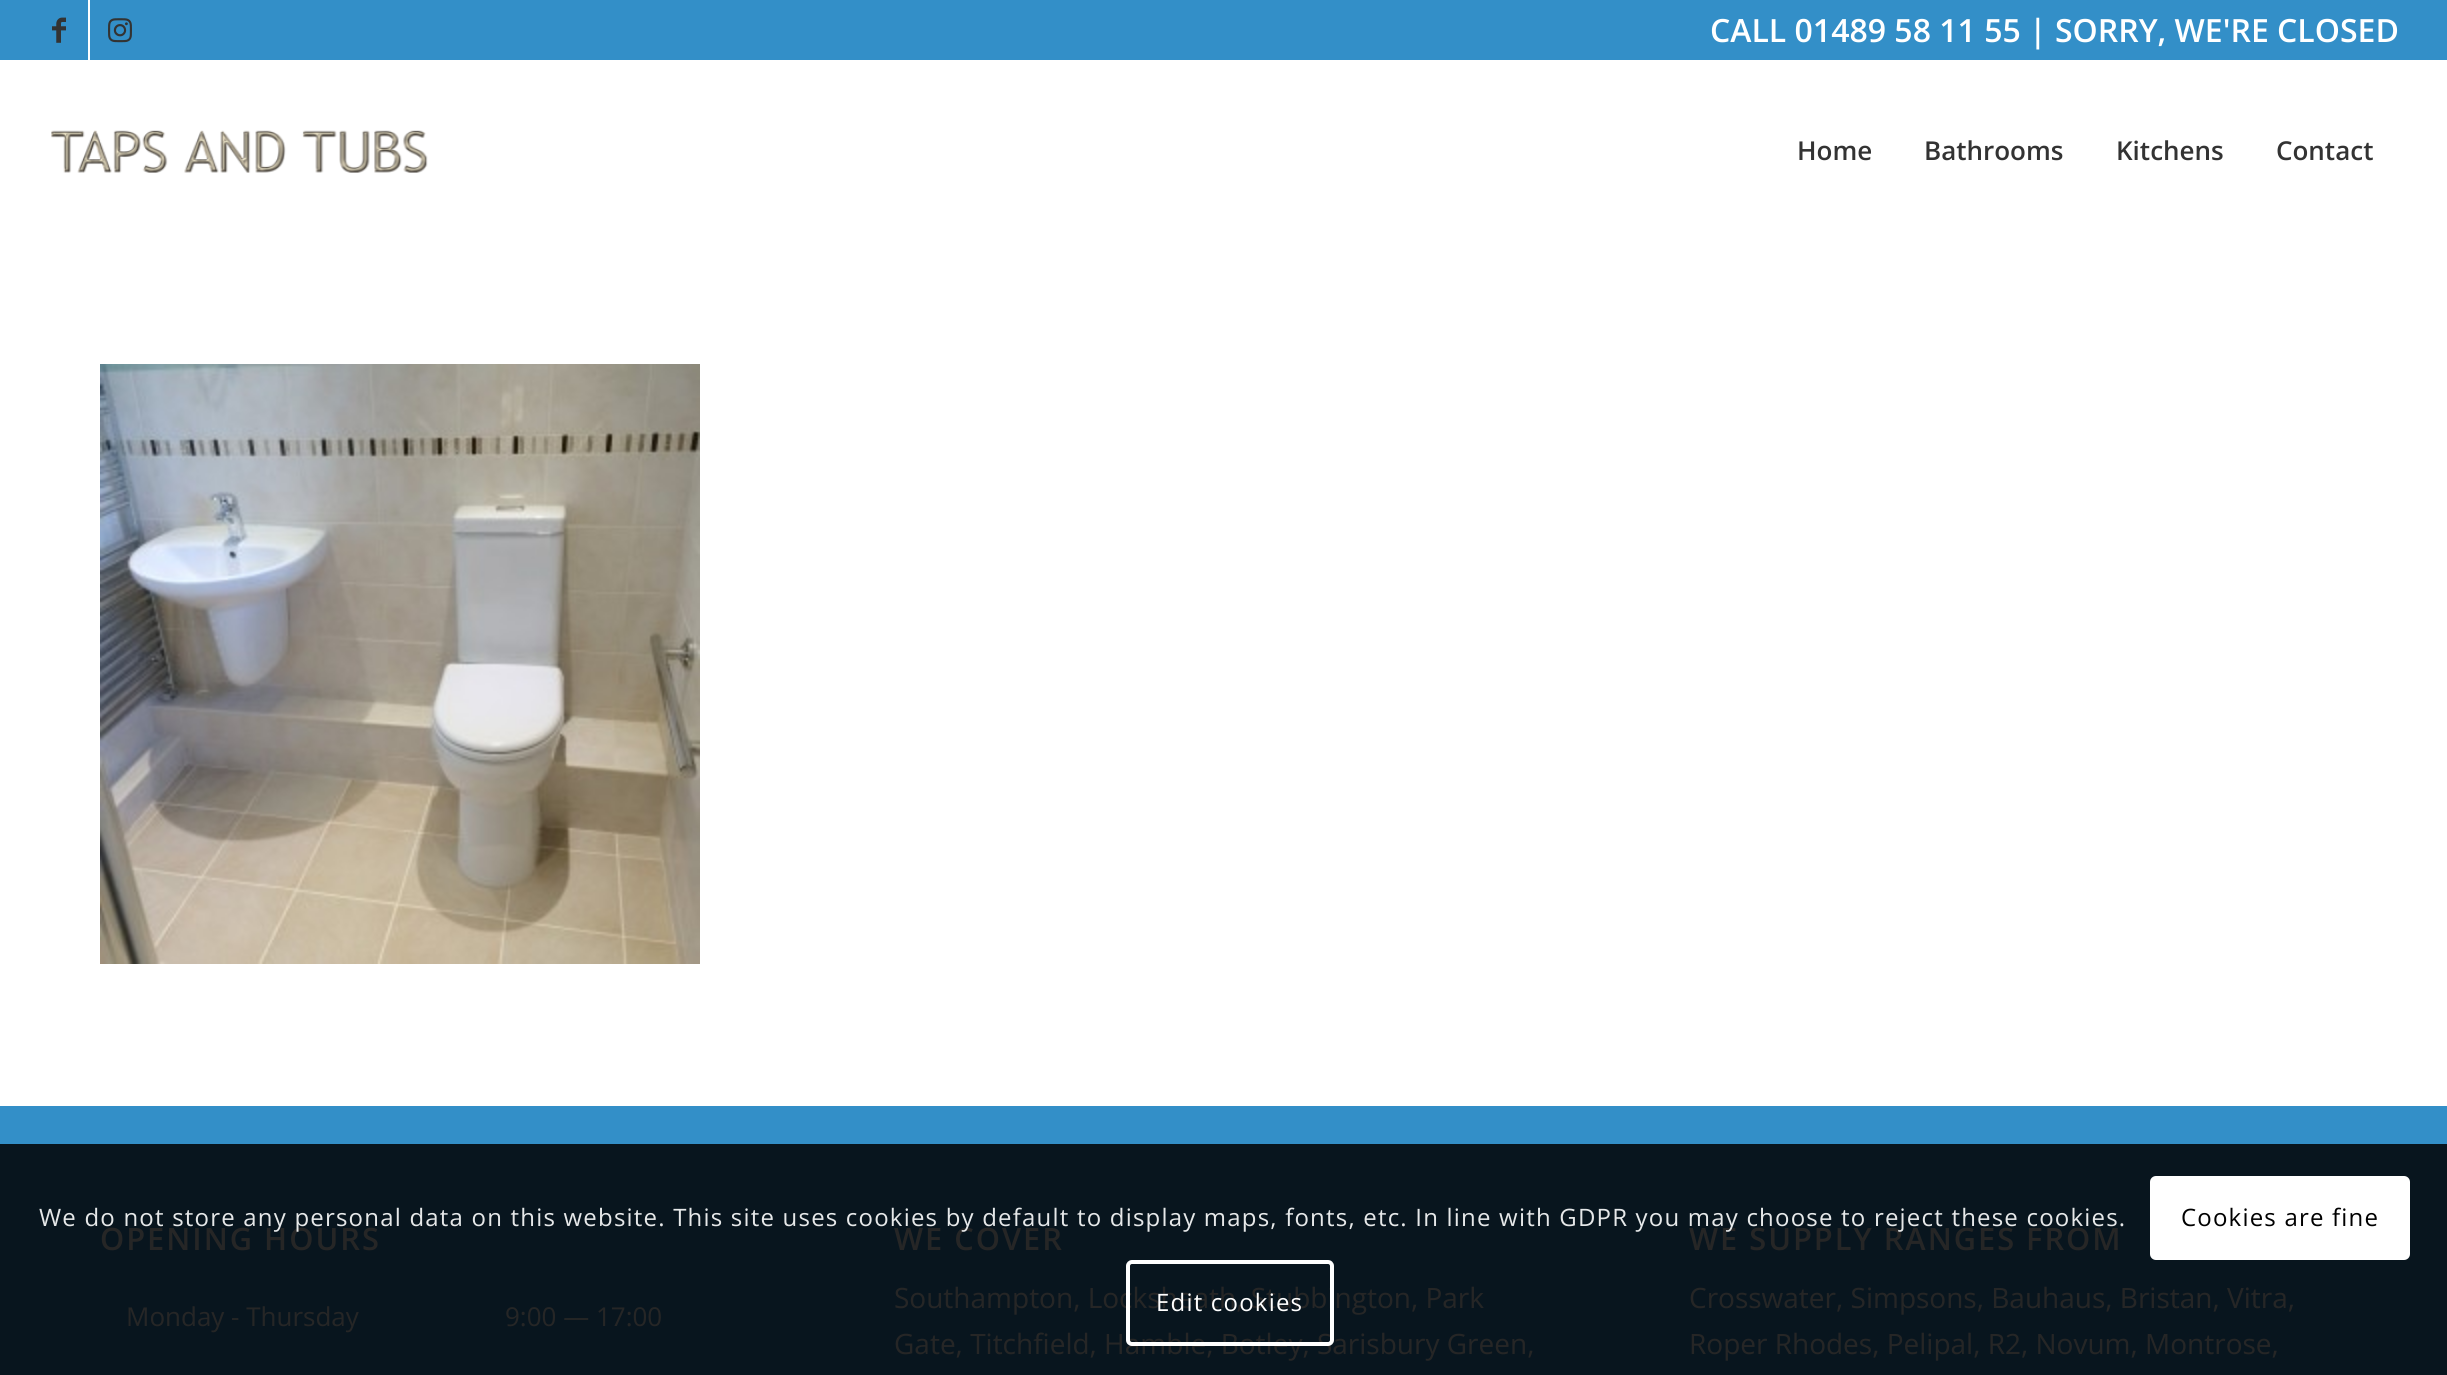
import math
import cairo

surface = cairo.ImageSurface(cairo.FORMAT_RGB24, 2447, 1375)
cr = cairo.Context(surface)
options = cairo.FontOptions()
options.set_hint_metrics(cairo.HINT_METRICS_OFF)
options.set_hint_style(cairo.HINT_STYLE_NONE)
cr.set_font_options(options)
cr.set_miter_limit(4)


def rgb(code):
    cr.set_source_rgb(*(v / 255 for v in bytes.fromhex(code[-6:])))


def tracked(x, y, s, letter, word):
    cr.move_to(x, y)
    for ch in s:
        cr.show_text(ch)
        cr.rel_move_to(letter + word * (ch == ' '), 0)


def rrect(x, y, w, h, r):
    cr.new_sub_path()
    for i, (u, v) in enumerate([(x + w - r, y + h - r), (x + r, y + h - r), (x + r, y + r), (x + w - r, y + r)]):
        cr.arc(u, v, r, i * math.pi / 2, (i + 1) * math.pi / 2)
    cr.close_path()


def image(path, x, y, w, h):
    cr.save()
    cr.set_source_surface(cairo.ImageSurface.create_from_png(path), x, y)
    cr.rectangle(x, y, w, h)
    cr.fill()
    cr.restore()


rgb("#ffffff")
cr.paint()
rgb("#338fc8")
cr.rectangle(0, 0, 2447, 60)
cr.fill()
rgb("#ffffff")
cr.rectangle(88, 0, 2, 60)
cr.fill()
image("img/1.png", 52, 17, 14, 26)
image("img/2.png", 108, 18, 24, 25)
image("img/3.png", 51, 130, 377, 43)
image("img/4.png", 100, 364, 600, 600)
rgb("#338fc8")
cr.rectangle(0, 1106, 2447, 38)
cr.fill()
rgb("#08151e")
cr.rectangle(0, 1144, 2447, 231)
cr.fill()
rgb("#ffffff")
rrect(2150, 1176, 260, 84, 6)
cr.fill()
cr.select_font_face("Open Sans SemiBold")
cr.set_font_size(32)
cr.move_to(1710, 42)
cr.show_text("CALL 01489 58 11 55 | SORRY, WE'RE CLOSED")
cr.set_font_size(26)
rgb("#333333")
for x, y, s in [
    (1797, 160, "Home"),
    (1924, 160, "Bathrooms"),
    (2116, 160, "Kitchens"),
    (2276, 160, "Contact"),
]:
    cr.move_to(x, y)
    cr.show_text(s)
cr.set_font_size(30.75)
rgb("#262626")
tracked(100, 1250, "OPENING HOURS", 2, 0)
cr.select_font_face("Open Sans")
cr.set_font_size(26)
cr.move_to(126, 1326)
cr.show_text("Monday - Thursday")
cr.move_to(505, 1326)
cr.show_text("9:00 — 17:00")
cr.select_font_face("Open Sans SemiBold")
cr.set_font_size(30.75)
tracked(894, 1250, "WE COVER", 2, 0)
cr.select_font_face("Open Sans")
cr.set_font_size(28)
cr.move_to(894, 1308)
cr.show_text("Southampton, Locksheath, Stubbington, Park")
cr.move_to(894, 1354)
cr.show_text("Gate, Titchfield, Hamble, Botley, Sarisbury Green,")
cr.select_font_face("Open Sans SemiBold")
cr.set_font_size(30.75)
tracked(1689, 1250, "WE SUPPLY RANGES FROM", 2, 0)
cr.select_font_face("Open Sans")
cr.set_font_size(28)
cr.move_to(1689, 1308)
cr.show_text("Crosswater, Simpsons, Bauhaus, Bristan, Vitra,")
cr.move_to(1689, 1354)
cr.show_text("Roper Rhodes, Pelipal, R2, Novum, Montrose,")
cr.set_font_size(24)
rgb("#e6e8e9")
tracked(39, 1226, "We do not store any personal data on this website. This site uses cookies by default to display maps, fonts, etc. In line with GDPR you may choose to reject these cookies.", 1.2, 0)
rgb("#000000")
tracked(2181, 1226, "Cookies are fine", 1.2, 0)
rrect(1128, 1262, 204, 82, 4)
rgb("#ffffff")
cr.set_line_width(4)
cr.stroke()
tracked(1156, 1311, "Edit cookies", 1.2, 0)
surface.write_to_png("page.png")
